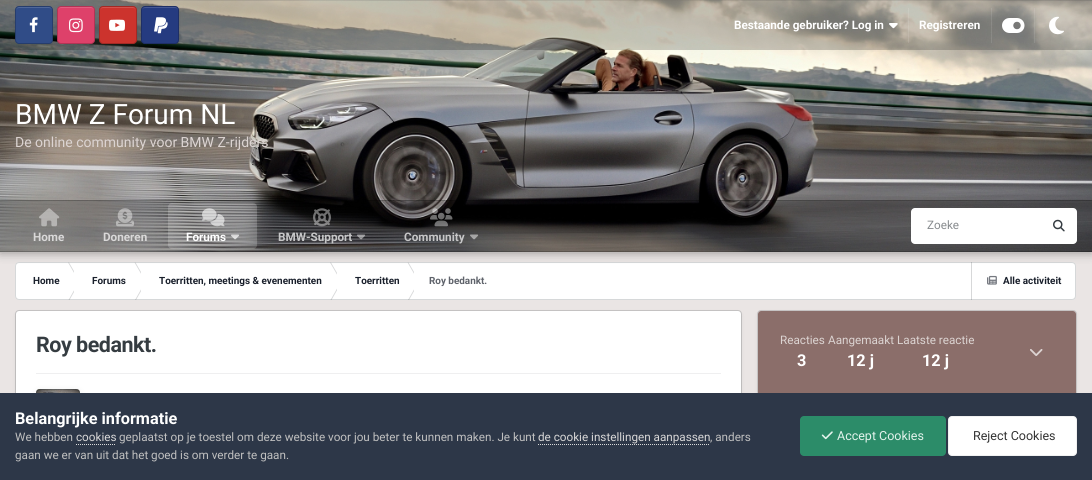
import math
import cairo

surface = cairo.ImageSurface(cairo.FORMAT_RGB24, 1092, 480)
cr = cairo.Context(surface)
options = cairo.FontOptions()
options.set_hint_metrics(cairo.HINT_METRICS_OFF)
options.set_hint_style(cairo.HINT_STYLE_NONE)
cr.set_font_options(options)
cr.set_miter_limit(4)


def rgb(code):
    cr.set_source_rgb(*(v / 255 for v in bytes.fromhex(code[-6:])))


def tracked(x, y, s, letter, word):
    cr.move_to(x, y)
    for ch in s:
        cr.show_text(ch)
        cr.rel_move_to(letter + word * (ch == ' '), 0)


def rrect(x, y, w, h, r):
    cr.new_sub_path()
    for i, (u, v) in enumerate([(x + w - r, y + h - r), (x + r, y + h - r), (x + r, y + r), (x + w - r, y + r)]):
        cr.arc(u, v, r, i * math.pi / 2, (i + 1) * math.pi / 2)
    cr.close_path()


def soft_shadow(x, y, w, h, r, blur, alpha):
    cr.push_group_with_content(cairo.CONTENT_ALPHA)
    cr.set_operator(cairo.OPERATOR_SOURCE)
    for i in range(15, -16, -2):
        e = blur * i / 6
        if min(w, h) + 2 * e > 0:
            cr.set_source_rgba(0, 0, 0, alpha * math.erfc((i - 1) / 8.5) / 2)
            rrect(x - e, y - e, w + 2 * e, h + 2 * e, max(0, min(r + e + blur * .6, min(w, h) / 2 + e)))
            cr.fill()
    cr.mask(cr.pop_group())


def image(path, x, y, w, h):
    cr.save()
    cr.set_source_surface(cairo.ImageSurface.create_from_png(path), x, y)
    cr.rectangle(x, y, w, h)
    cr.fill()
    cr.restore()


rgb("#eae5e4")
cr.paint()
rgb("#ffffff")
rrect(15, 262, 1061, 38, 4)
cr.fill()
cr.save()
cr.rectangle(15, 262, 59, 38)
cr.clip()
rgb("#d7d8d9")
cr.new_path()
cr.move_to(68, 262.5)
cr.line_to(69, 262.5)
cr.line_to(80, 281.5)
cr.line_to(79, 281.5)
cr.close_path()
cr.move_to(69.5, 300)
cr.line_to(80, 281.5)
cr.line_to(79, 281.5)
cr.line_to(68.5, 300)
cr.close_path()
cr.fill()
cr.restore()
cr.save()
cr.rectangle(74, 262, 67, 38)
cr.clip()
rgb("#d7d8d9")
cr.new_path()
cr.move_to(134.5, 262.5)
cr.line_to(135.5, 262.5)
cr.line_to(146.5, 281.5)
cr.line_to(145.5, 281.5)
cr.close_path()
cr.move_to(136, 300)
cr.line_to(146.5, 281.5)
cr.line_to(145.5, 281.5)
cr.line_to(135, 300)
cr.close_path()
cr.fill()
cr.restore()
cr.save()
cr.rectangle(141, 262, 196, 38)
cr.clip()
rgb("#d7d8d9")
cr.new_path()
cr.move_to(330, 262.5)
cr.line_to(331, 262.5)
cr.line_to(342, 281.5)
cr.line_to(341, 281.5)
cr.close_path()
cr.move_to(331.5, 300)
cr.line_to(342, 281.5)
cr.line_to(341, 281.5)
cr.line_to(330.5, 300)
cr.close_path()
cr.fill()
cr.restore()
cr.save()
cr.rectangle(337, 262, 77, 38)
cr.clip()
rgb("#d7d8d9")
cr.new_path()
cr.move_to(407.5, 262.5)
cr.line_to(408.5, 262.5)
cr.line_to(419.5, 281.5)
cr.line_to(418.5, 281.5)
cr.close_path()
cr.move_to(409, 300)
cr.line_to(419.5, 281.5)
cr.line_to(418.5, 281.5)
cr.line_to(408, 300)
cr.close_path()
cr.fill()
cr.restore()
rgb("#d7d8d9")
cr.rectangle(971, 262, 1, 38)
cr.fill()
image("img/18.png", 987, 275, 10, 10)
rrect(15.5, 262.5, 1060, 37, 3.5)
cr.set_source_rgba(0.208, 0.235, 0.255, 0.2)
cr.set_line_width(1)
cr.stroke()
rgb("#000000")
soft_shadow(0, 1, 1092, 252, 0, 5, 0.35)
image("img/1.png", 0, 0, 1092, 252)
cr.set_source_rgba(0, 0, 0, 0.2)
cr.rectangle(0, 0, 1092, 50)
cr.fill()
rgb("#000000")
soft_shadow(15, 7, 38, 38, 4, 1.5, 0.1)
rgb("#304c87")
rrect(15, 6, 38, 38, 4)
cr.fill()
rgb("#4f6799")
cr.new_path()
cr.move_to(19, 8)
cr.curve_to(17, 8, 16, 9, 16, 11)
cr.curve_to(16, 6, 20, 7, 24, 7)
cr.line_to(44, 7)
cr.curve_to(48, 7, 52, 6, 52, 11)
cr.curve_to(52, 9, 51, 8, 49, 8)
cr.close_path()
cr.fill()
image("img/2.png", 29, 17, 9, 16)
rrect(15.5, 6.5, 37, 37, 3.5)
cr.set_source_rgba(0, 0, 0, 0.2)
cr.stroke()
rgb("#000000")
soft_shadow(57, 7, 38, 38, 4, 1.5, 0.1)
rgb("#de416a")
rrect(57, 6, 38, 38, 4)
cr.fill()
rgb("#e35e80")
cr.new_path()
cr.move_to(61, 8)
cr.curve_to(59, 8, 58, 9, 58, 11)
cr.curve_to(58, 6, 62, 7, 66, 7)
cr.line_to(86, 7)
cr.curve_to(90, 7, 94, 6, 94, 11)
cr.curve_to(94, 9, 93, 8, 91, 8)
cr.close_path()
cr.fill()
image("img/3.png", 69, 18, 14, 15)
rrect(57.5, 6.5, 37, 37, 3.5)
cr.set_source_rgba(0, 0, 0, 0.2)
cr.stroke()
rgb("#000000")
soft_shadow(99, 7, 38, 38, 4, 1.5, 0.1)
rgb("#cc332d")
rrect(99, 6, 38, 38, 4)
cr.fill()
rgb("#d4524d")
cr.new_path()
cr.move_to(103, 8)
cr.curve_to(101, 8, 100, 9, 100, 11)
cr.curve_to(100, 6, 104, 7, 108, 7)
cr.line_to(128, 7)
cr.curve_to(132, 7, 136, 6, 136, 11)
cr.curve_to(136, 9, 135, 8, 133, 8)
cr.close_path()
cr.fill()
image("img/4.png", 109, 19, 16, 12)
rrect(99.5, 6.5, 37, 37, 3.5)
cr.set_source_rgba(0, 0, 0, 0.2)
cr.stroke()
rgb("#000000")
soft_shadow(141, 7, 38, 38, 4, 1.5, 0.1)
rgb("#253b80")
rrect(141, 6, 38, 38, 4)
cr.fill()
rgb("#465893")
cr.new_path()
cr.move_to(145, 8)
cr.curve_to(143, 8, 142, 9, 142, 11)
cr.curve_to(142, 6, 146, 7, 150, 7)
cr.line_to(170, 7)
cr.curve_to(174, 7, 178, 6, 178, 11)
cr.curve_to(178, 9, 177, 8, 175, 8)
cr.close_path()
cr.fill()
image("img/5.png", 154, 17, 14, 17)
rrect(141.5, 6.5, 37, 37, 3.5)
cr.set_source_rgba(0, 0, 0, 0.2)
cr.stroke()
image("img/6.png", 889, 23, 9, 6)
cr.set_source_rgba(1, 1, 1, 0.1)
cr.rectangle(908, 8, 1, 35)
cr.fill()
cr.rectangle(991, 8, 1, 35)
cr.fill()
image("img/7.png", 1002, 18, 23, 15)
cr.rectangle(1034, 8, 1, 35)
cr.fill()
image("img/8.png", 1049, 16, 15, 19)
cr.set_source_rgba(0, 0, 0, 0.2)
cr.rectangle(0, 200, 1092, 52)
cr.fill()
cr.rectangle(0, 200, 1092, 1)
cr.fill()
cr.rectangle(0, 251, 1092, 1)
cr.fill()
rgb("#ffffff")
rrect(911, 208, 166, 36, 4)
cr.fill()
image("img/9.png", 1053, 219, 12, 13)
image("img/10.png", 39, 208, 21, 19)
image("img/11.png", 116, 208, 18, 19)
cr.set_source_rgba(1, 1, 1, 0.2)
rrect(168, 203, 89, 46, 4)
cr.fill()
image("img/12.png", 202, 208, 23, 19)
image("img/13.png", 231, 234, 9, 6)
image("img/14.png", 313, 208, 18, 19)
image("img/15.png", 357, 234, 9, 6)
image("img/16.png", 430, 208, 23, 19)
image("img/17.png", 470, 234, 9, 6)
rgb("#000000")
soft_shadow(16, 313, 725, 142, 3, 2, 0.1)
rgb("#ffffff")
rrect(16, 311, 725, 142, 3)
cr.fill()
rrect(15.5, 310.5, 726, 143, 3.5)
cr.set_source_rgba(0.208, 0.235, 0.255, 0.2)
cr.stroke()
rgb("#efeff0")
cr.rectangle(36, 373, 685, 1)
cr.fill()
image("img/19.png", 36, 389, 44, 4)
cr.save()
cr.set_fill_rule(cairo.FILL_RULE_EVEN_ODD)
cr.new_path()
cr.move_to(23, 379)
cr.line_to(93, 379)
cr.line_to(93, 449)
cr.line_to(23, 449)
cr.close_path()
cr.move_to(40, 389)
cr.line_to(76, 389)
cr.curve_to(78, 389, 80, 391, 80, 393)
cr.line_to(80, 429)
cr.curve_to(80, 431, 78, 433, 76, 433)
cr.line_to(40, 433)
cr.curve_to(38, 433, 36, 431, 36, 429)
cr.line_to(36, 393)
cr.curve_to(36, 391, 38, 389, 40, 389)
cr.close_path()
cr.clip()
rgb("#000000")
soft_shadow(36, 392, 44, 44, 4, 4, 0.1)
cr.restore()
rrect(36.5, 389.5, 43, 43, 3.5)
cr.set_source_rgba(0.208, 0.235, 0.255, 0.3)
cr.stroke()
rgb("#000000")
soft_shadow(758, 313, 318, 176, 3, 2, 0.1)
rrect(757.5, 310.5, 319, 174, 3.5)
rgb("#c6c3c3")
cr.stroke()
rgb("#8b6e6a")
cr.new_path()
cr.move_to(761, 311)
cr.line_to(996, 311)
cr.line_to(996, 393)
cr.line_to(758, 393)
cr.line_to(758, 314)
cr.curve_to(758, 312.5, 759.5, 311, 761, 311)
cr.close_path()
cr.fill()
cr.new_path()
cr.move_to(996, 311)
cr.line_to(1073, 311)
cr.curve_to(1074.5, 311, 1076, 312.5, 1076, 314)
cr.line_to(1076, 393)
cr.line_to(996, 393)
cr.close_path()
cr.fill()
image("img/20.png", 1030, 349, 13, 7)
rgb("#2d3748")
cr.rectangle(0, 393, 1092, 87)
cr.fill()
cr.new_path()
cr.move_to(76, 444.5)
cr.line_to(116, 444.5)
rgb("#dadada")
cr.set_dash([1, 1])
cr.stroke()
cr.new_path()
cr.move_to(538, 444.5)
cr.line_to(710, 444.5)
cr.stroke()
rgb("#2c8c69")
rrect(800, 416, 146, 40, 4)
cr.fill()
image("img/21.png", 821, 431, 12, 9)
rgb("#ffffff")
rrect(948, 416, 129, 40, 4)
cr.fill()
rrect(948.5, 416.5, 128, 39, 3.5)
cr.set_source_rgba(0.2, 0.2, 0.2, 0.07)
cr.set_dash([])
cr.stroke()
cr.select_font_face("Roboto", cairo.FONT_SLANT_NORMAL, cairo.FONT_WEIGHT_BOLD)
cr.set_font_size(11.7)
rgb("#ffffff")
cr.move_to(734, 29)
cr.show_text("Bestaande gebruiker? Log in")
cr.move_to(919, 29)
cr.show_text("Registreren")
cr.select_font_face("Roboto")
cr.set_font_size(28)
cr.move_to(15, 124)
cr.show_text("BMW Z Forum NL")
cr.set_font_size(14)
rgb("#dcd4d2")
cr.move_to(15, 147)
cr.show_text("De online community voor BMW Z-rijders")
cr.set_font_size(11.7)
rgb("#868a8d")
cr.move_to(927, 229)
cr.show_text("Zoeke")
cr.select_font_face("Roboto", cairo.FONT_SLANT_NORMAL, cairo.FONT_WEIGHT_BOLD)
rgb("#d9d8d8")
cr.move_to(33, 241)
cr.show_text("Home")
cr.move_to(103, 241)
cr.show_text("Doneren")
rgb("#ffffff")
cr.move_to(186, 241)
cr.show_text("Forums")
rgb("#c7c7c8")
cr.move_to(278, 241)
cr.show_text("BMW-Support")
cr.move_to(404, 241)
cr.show_text("Community")
cr.set_font_size(9.9)
rgb("#1a202c")
for x, y, s in [
    (33, 284, "Home"),
    (92, 284, "Forums"),
    (159, 284, "Toerritten, meetings & evenementen"),
    (355, 284, "Toerritten"),
]:
    cr.move_to(x, y)
    cr.show_text(s)
rgb("#5f636b")
cr.move_to(429, 284)
cr.show_text("Roy bedankt.")
rgb("#1a202c")
cr.move_to(1003, 284)
cr.show_text("Alle activiteit")
cr.set_font_size(21.5)
rgb("#353c41")
tracked(36, 352, "Roy bedankt.", -0.5, 0)
cr.select_font_face("Roboto")
cr.set_font_size(11.7)
rgb("#dcd4d2")
cr.move_to(780, 344)
cr.show_text("Reacties")
cr.select_font_face("Roboto", cairo.FONT_SLANT_NORMAL, cairo.FONT_WEIGHT_BOLD)
cr.set_font_size(16.25)
rgb("#ffffff")
cr.move_to(797, 366)
cr.show_text("3")
cr.select_font_face("Roboto")
cr.set_font_size(11.7)
rgb("#dcd4d2")
cr.move_to(828, 344)
cr.show_text("Aangemaakt")
cr.select_font_face("Roboto", cairo.FONT_SLANT_NORMAL, cairo.FONT_WEIGHT_BOLD)
cr.set_font_size(16.25)
rgb("#ffffff")
cr.move_to(847, 366)
cr.show_text("12 j")
cr.select_font_face("Roboto")
cr.set_font_size(11.7)
rgb("#dcd4d2")
cr.move_to(897, 344)
cr.show_text("Laatste reactie")
cr.select_font_face("Roboto", cairo.FONT_SLANT_NORMAL, cairo.FONT_WEIGHT_BOLD)
cr.set_font_size(16.25)
rgb("#ffffff")
cr.move_to(922, 366)
cr.show_text("12 j")
cr.move_to(15, 424)
cr.show_text("Belangrijke informatie")
cr.select_font_face("Roboto")
cr.set_font_size(11.7)
rgb("#c0c0c0")
cr.move_to(15, 441)
cr.show_text("We hebben")
rgb("#d9d8d8")
cr.move_to(76, 441)
cr.show_text("cookies")
rgb("#c0c0c0")
cr.move_to(119, 441)
cr.show_text("geplaatst op je toestel om deze website voor jou beter te kunnen maken. Je kunt")
rgb("#d9d8d8")
cr.move_to(538, 441)
cr.show_text("de cookie instellingen aanpassen")
rgb("#c0c0c0")
cr.move_to(710, 441)
cr.show_text(", anders")
cr.move_to(15, 459)
cr.show_text("gaan we er van uit dat het goed is om verder te gaan.")
cr.set_font_size(12.5)
rgb("#e3f3ec")
cr.move_to(837, 440)
cr.show_text("Accept Cookies")
rgb("#333333")
cr.move_to(973, 440)
cr.show_text("Reject Cookies")
surface.write_to_png("page.png")
